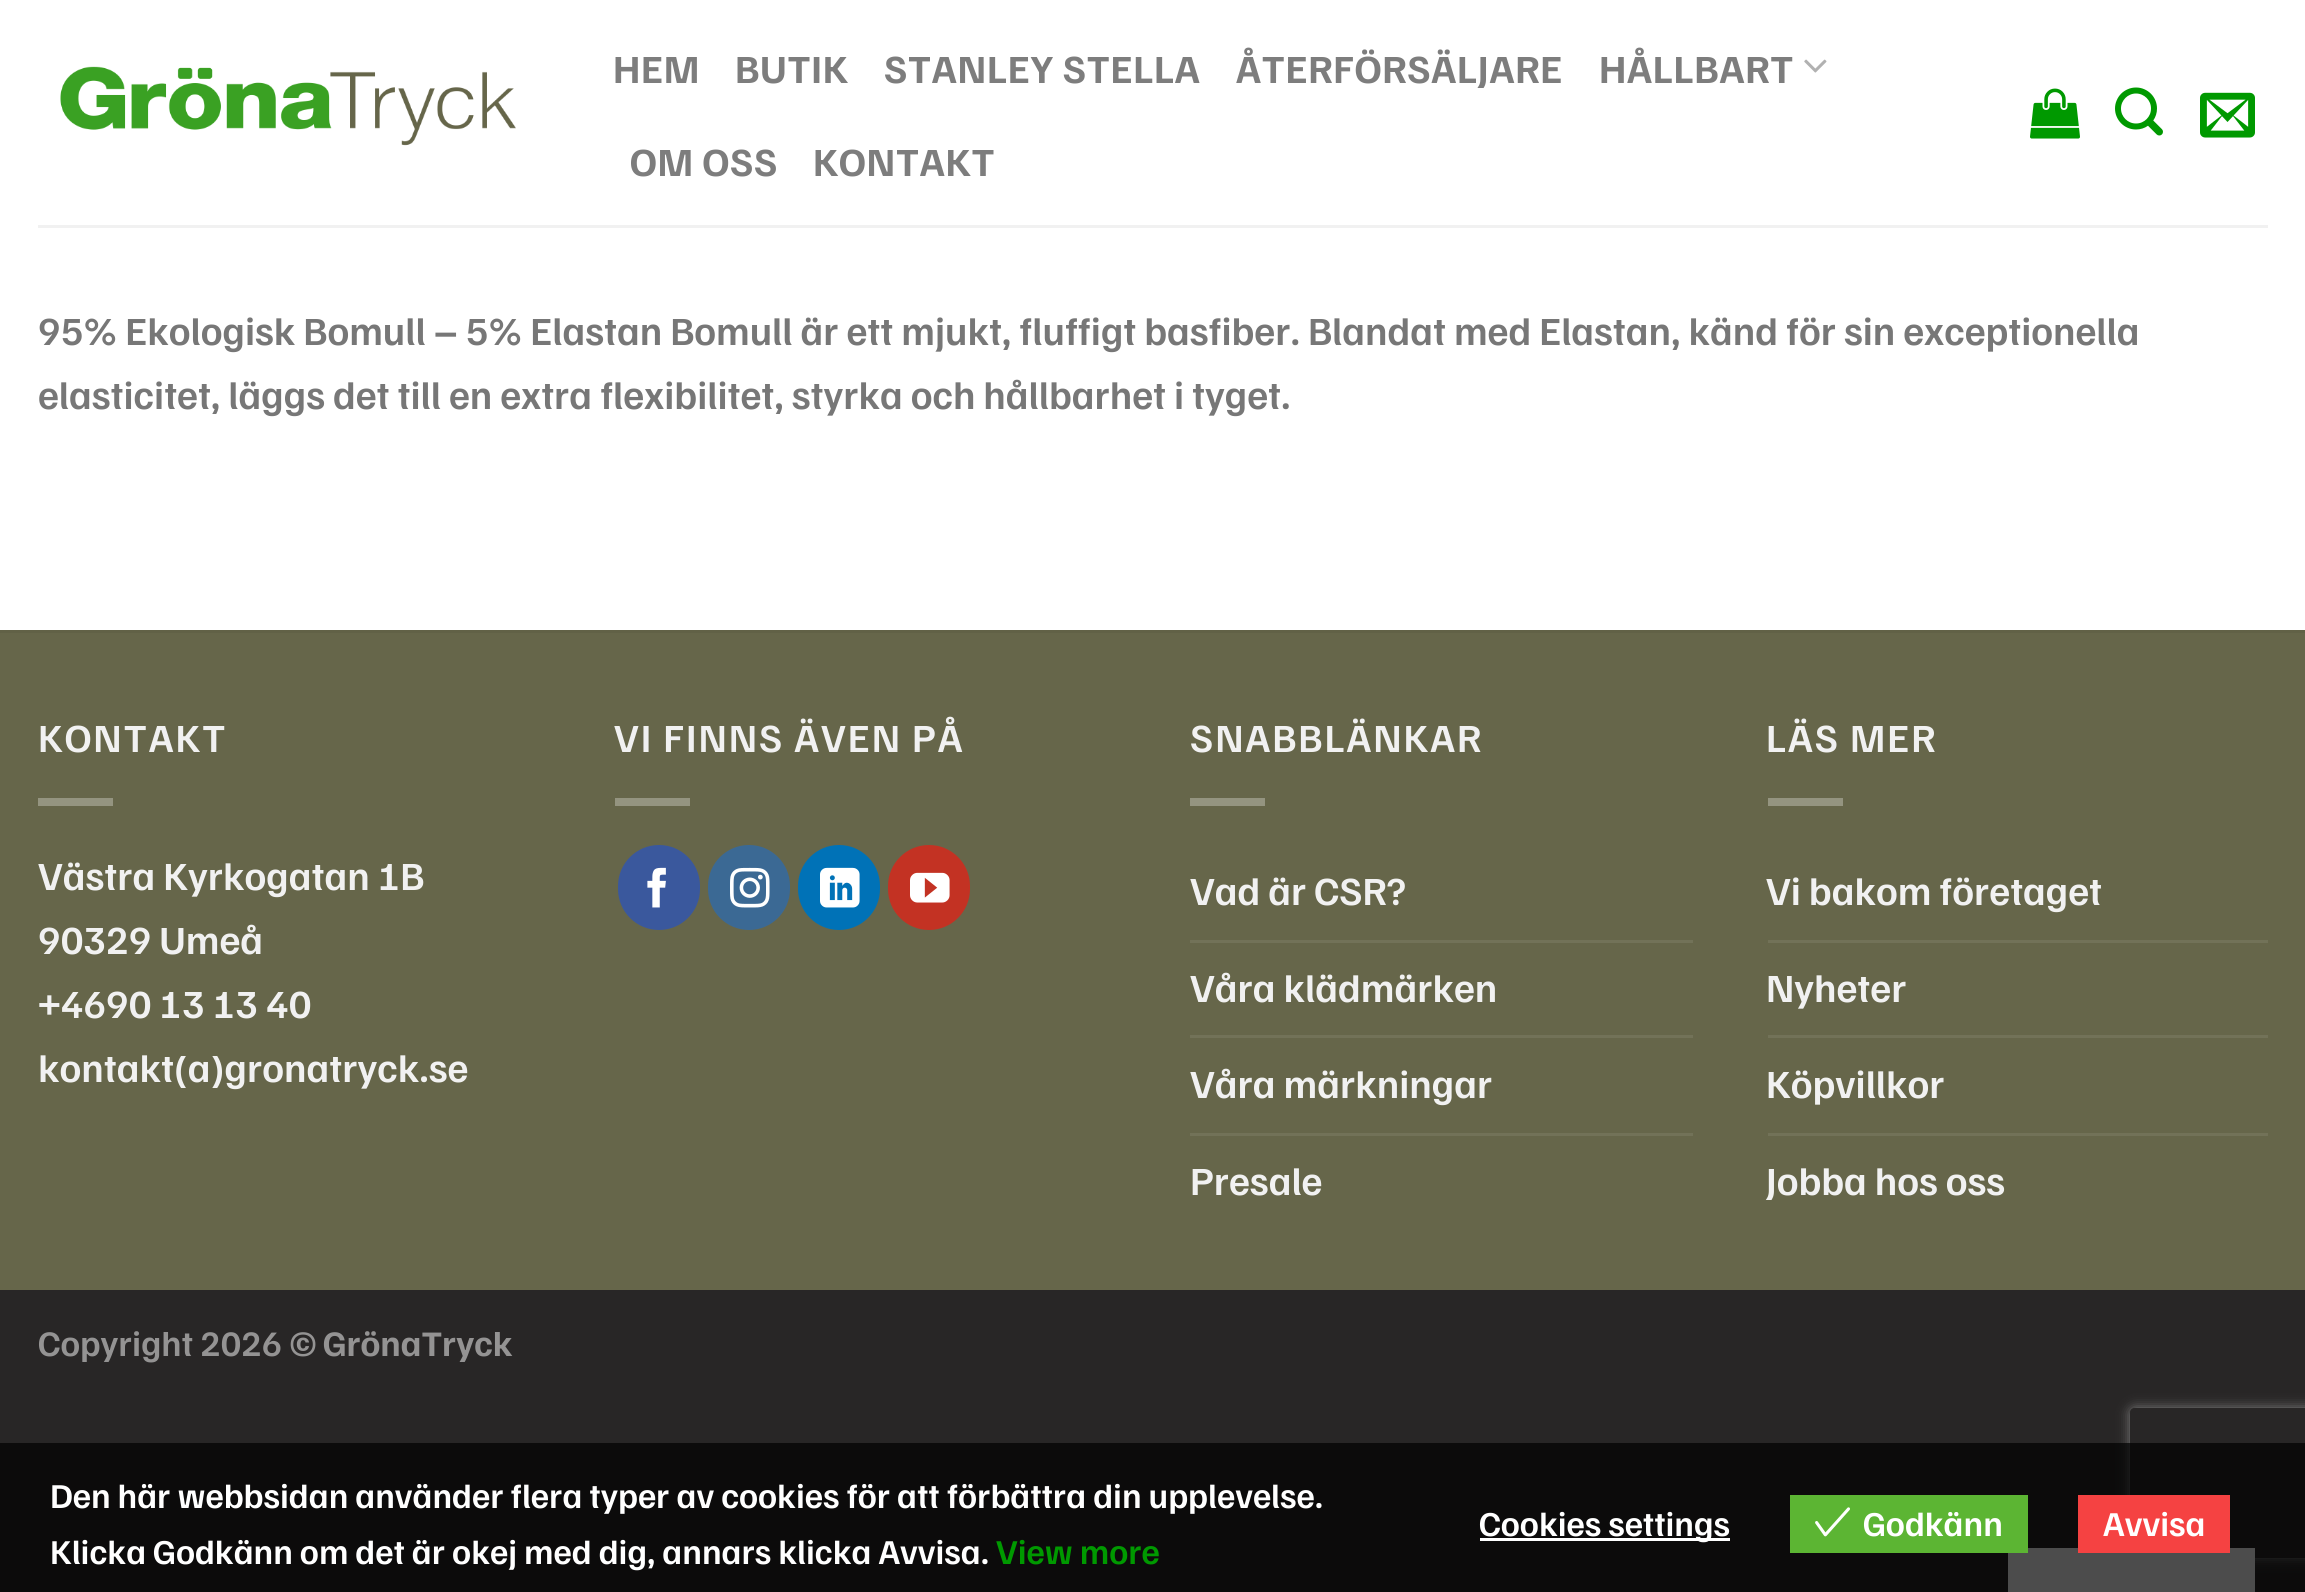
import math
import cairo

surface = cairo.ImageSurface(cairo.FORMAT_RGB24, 2305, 1592)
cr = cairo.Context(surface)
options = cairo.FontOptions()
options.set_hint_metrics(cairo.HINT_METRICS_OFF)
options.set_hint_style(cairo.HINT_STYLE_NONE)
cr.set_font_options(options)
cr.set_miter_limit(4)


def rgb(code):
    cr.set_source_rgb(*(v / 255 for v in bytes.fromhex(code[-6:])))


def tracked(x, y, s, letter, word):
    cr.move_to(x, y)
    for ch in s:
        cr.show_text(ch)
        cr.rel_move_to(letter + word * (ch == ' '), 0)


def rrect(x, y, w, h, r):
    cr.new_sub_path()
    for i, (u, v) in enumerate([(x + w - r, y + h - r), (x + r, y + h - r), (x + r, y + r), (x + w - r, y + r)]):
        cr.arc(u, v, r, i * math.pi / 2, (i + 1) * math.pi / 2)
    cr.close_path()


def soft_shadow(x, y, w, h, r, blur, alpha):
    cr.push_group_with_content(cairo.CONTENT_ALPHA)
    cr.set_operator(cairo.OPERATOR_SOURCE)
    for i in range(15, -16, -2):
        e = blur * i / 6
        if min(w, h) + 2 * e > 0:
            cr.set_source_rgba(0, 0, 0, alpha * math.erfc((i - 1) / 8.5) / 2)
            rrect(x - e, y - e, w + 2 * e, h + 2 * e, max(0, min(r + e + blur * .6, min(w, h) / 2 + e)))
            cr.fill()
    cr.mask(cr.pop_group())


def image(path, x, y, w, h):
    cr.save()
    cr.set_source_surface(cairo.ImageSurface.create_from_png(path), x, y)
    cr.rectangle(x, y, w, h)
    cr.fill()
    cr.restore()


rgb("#282626")
cr.paint()
rgb("#ffffff")
cr.rectangle(0, 0, 2305, 630)
cr.fill()
image("img/1.png", 60, 66, 456, 80)
image("img/2.png", 1804, 59, 23, 14)
image("img/3.png", 2030, 88, 50, 51)
image("img/4.png", 2115, 87, 48, 49)
image("img/5.png", 2200, 92, 55, 46)
for x, y, w, h, color in [
    (38, 225, 2230, 3, "#f1f1f1"),
    (0, 633, 2305, 657, "#66664a"),
    (0, 630, 2305, 3, "#616146"),
    (38, 798, 75, 8, "#949480"),
    (615, 798, 75, 8, "#949480"),
]:
    rgb(color)
    cr.rectangle(x, y, w, h)
    cr.fill()
rgb("#3a589d")
rrect(619.5, 846.5, 79, 82, 39.5)
cr.fill_preserve()
cr.set_line_width(3)
cr.stroke()
image("img/6.png", 647, 867, 19, 41)
rgb("#3b6994")
rrect(709.5, 846.5, 79, 82, 39.5)
cr.fill_preserve()
cr.stroke()
image("img/7.png", 730, 867, 40, 41)
rgb("#0072b7")
rrect(799.5, 846.5, 79, 82, 39.5)
cr.fill_preserve()
cr.stroke()
image("img/8.png", 820, 867, 40, 41)
rgb("#c33223")
rrect(889.5, 846.5, 79, 82, 39.5)
cr.fill_preserve()
cr.stroke()
image("img/9.png", 910, 872, 40, 31)
for x, y, w, h, color in [
    (1190, 798, 75, 8, "#949480"),
    (1190, 940, 503, 3, "#727258"),
    (1190, 1035, 503, 3, "#727258"),
    (1190, 1133, 503, 3, "#727258"),
    (1768, 798, 75, 8, "#949480"),
    (1768, 940, 500, 3, "#727258"),
    (1768, 1035, 500, 3, "#727258"),
    (1768, 1133, 500, 3, "#727258"),
]:
    rgb(color)
    cr.rectangle(x, y, w, h)
    cr.fill()
cr.save()
cr.set_fill_rule(cairo.FILL_RULE_EVEN_ODD)
cr.new_path()
cr.move_to(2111, 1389)
cr.line_to(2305, 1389)
cr.line_to(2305, 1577)
cr.line_to(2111, 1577)
cr.close_path()
cr.move_to(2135, 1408)
cr.line_to(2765, 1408)
cr.curve_to(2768, 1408, 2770, 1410, 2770, 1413)
cr.line_to(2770, 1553)
cr.curve_to(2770, 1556, 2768, 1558, 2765, 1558)
cr.line_to(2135, 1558)
cr.curve_to(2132, 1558, 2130, 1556, 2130, 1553)
cr.line_to(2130, 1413)
cr.curve_to(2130, 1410, 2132, 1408, 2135, 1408)
cr.close_path()
cr.clip()
rgb("#808080")
soft_shadow(2130, 1408, 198, 150, 5, 6, 1)
cr.restore()
rgb("#ffffff")
cr.rectangle(2008, 1548, 247, 44)
cr.fill()
cr.set_source_rgba(0, 0, 0, 0.7)
cr.rectangle(0, 1443, 2305, 149)
cr.fill()
rgb("#ffffff")
cr.rectangle(1480, 1538, 250, 3)
cr.fill()
rgb("#5cb533")
cr.rectangle(1790, 1495, 238, 58)
cr.fill()
image("img/10.png", 1815, 1507, 35, 30)
rgb("#f54242")
cr.rectangle(2078, 1495, 152, 58)
cr.fill()
cr.select_font_face("Familjen Grotesk", cairo.FONT_SLANT_NORMAL, cairo.FONT_WEIGHT_BOLD)
cr.set_font_size(40)
rgb("#7d7d7d")
for x, y, s in [
    (613, 83, "HEM"),
    (735, 83, "BUTIK"),
    (884, 83, "STANLEY STELLA"),
    (1236, 83, "ÅTERFÖRSÄLJARE"),
    (1599, 83, "HÅLLBART"),
    (630, 176, "OM OSS"),
    (813, 176, "KONTAKT"),
]:
    tracked(x, y, s, 0.75, 0)
cr.select_font_face("Familjen Grotesk SemiBold")
rgb("#777777")
cr.move_to(38, 345)
cr.show_text("95% Ekologisk Bomull – 5% Elastan Bomull är ett mjukt, fluffigt basfiber. Blandat med Elastan, känd för sin exceptionella")
cr.move_to(38, 409)
cr.show_text("elasticitet, läggs det till en extra flexibilitet, styrka och hållbarhet i tyget.")
rgb("#f1f1f1")
tracked(38, 752, "KONTAKT", 2, 0)
for x, y, s in [
    (38, 890, "Västra Kyrkogatan 1B"),
    (38, 954, "90329 Umeå"),
    (38, 1018, "+4690 13 13 40"),
    (38, 1082, "kontakt(a)gronatryck.se"),
]:
    cr.move_to(x, y)
    cr.show_text(s)
tracked(614, 752, "VI FINNS ÄVEN PÅ", 2, 0)
tracked(1190, 752, "SNABBLÄNKAR", 2, 0)
for x, y, s in [
    (1190, 905, "Vad är CSR?"),
    (1190, 1002, "Våra klädmärken"),
    (1190, 1098, "Våra märkningar"),
    (1190, 1195, "Presale"),
]:
    cr.move_to(x, y)
    cr.show_text(s)
tracked(1766, 752, "LÄS MER", 2, 0)
for x, y, s in [
    (1766, 905, "Vi bakom företaget"),
    (1766, 1002, "Nyheter"),
    (1766, 1098, "Köpvillkor"),
    (1766, 1195, "Jobba hos oss"),
]:
    cr.move_to(x, y)
    cr.show_text(s)
cr.set_font_size(36)
rgb("#949393")
cr.move_to(38, 1356)
cr.show_text("Copyright 2026 ©")
cr.select_font_face("Familjen Grotesk", cairo.FONT_SLANT_NORMAL, cairo.FONT_WEIGHT_BOLD)
cr.move_to(323, 1356)
cr.show_text("GrönaTryck")
cr.select_font_face("Familjen Grotesk SemiBold")
cr.set_font_size(35)
rgb("#ffffff")
cr.move_to(50, 1508)
cr.show_text("Den här webbsidan använder flera typer av cookies för att förbättra din upplevelse.")
cr.move_to(50, 1564)
cr.show_text("Klicka Godkänn om det är okej med dig, annars klicka Avvisa.")
rgb("#009900")
cr.move_to(996, 1564)
cr.show_text("View more")
rgb("#ffffff")
for x, y, s in [
    (1479, 1536, "Cookies settings"),
    (1863, 1536, "Godkänn"),
    (2103, 1536, "Avvisa"),
]:
    cr.move_to(x, y)
    cr.show_text(s)
surface.write_to_png("page.png")
